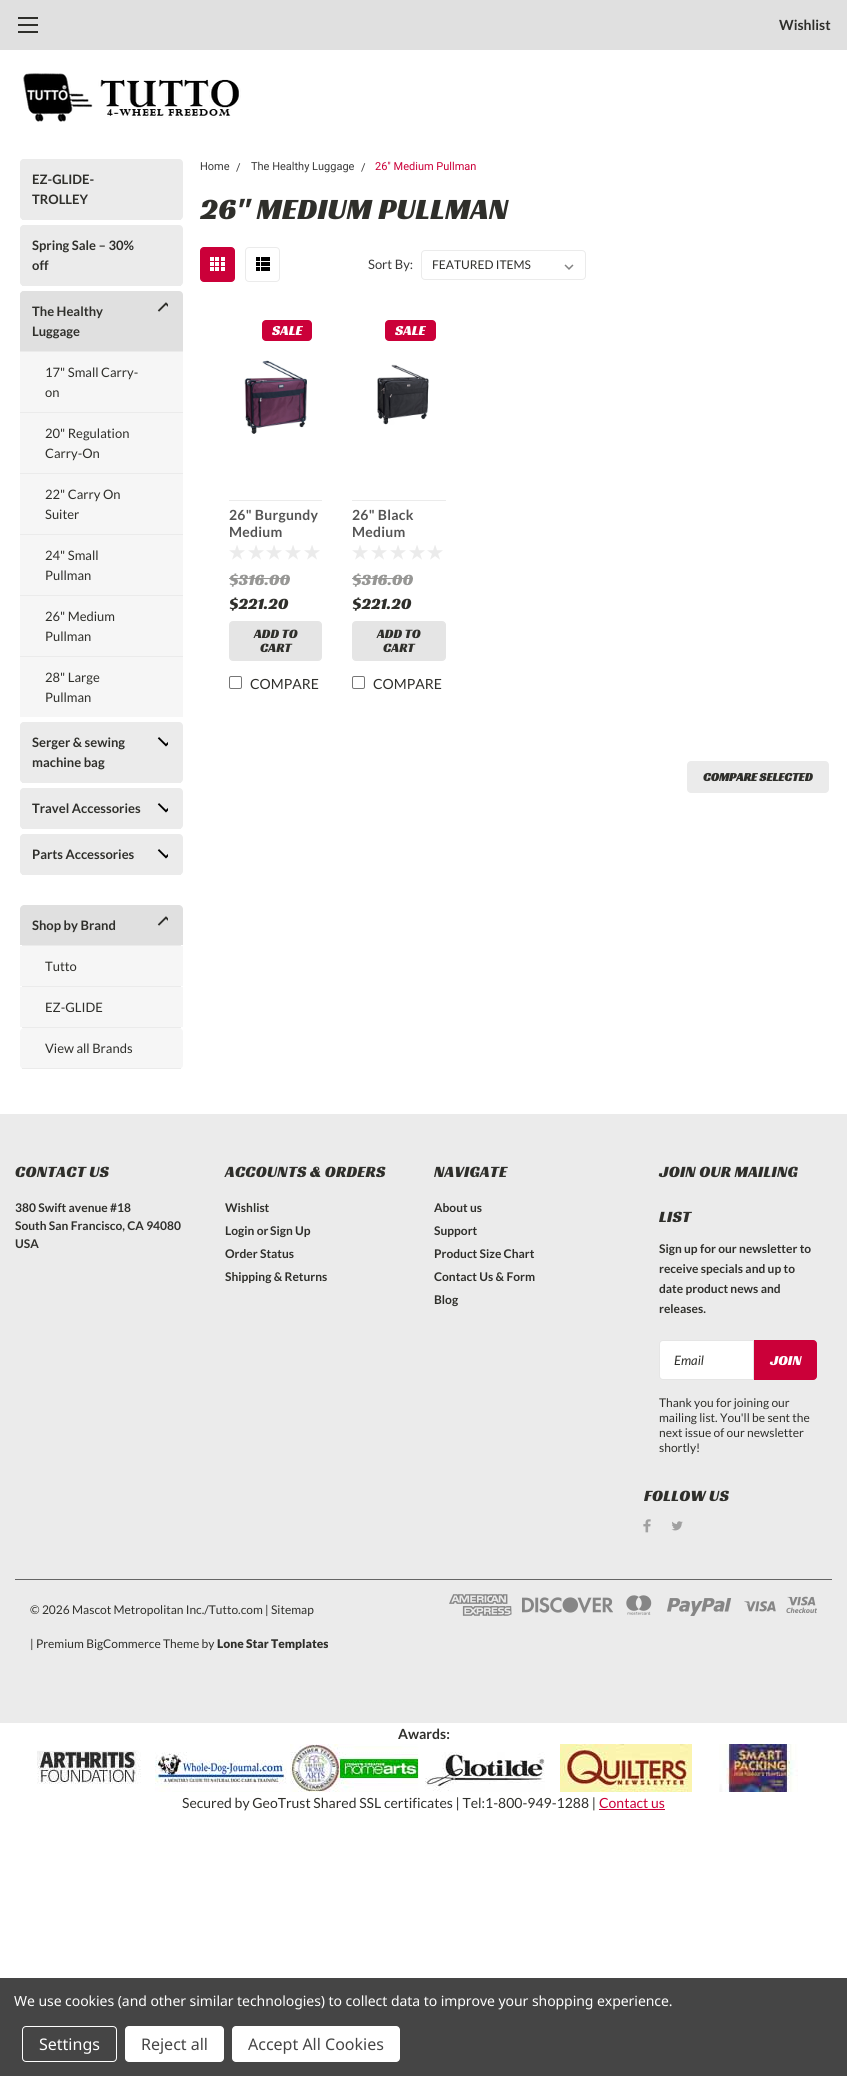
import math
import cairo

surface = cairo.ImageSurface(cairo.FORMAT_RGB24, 847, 2076)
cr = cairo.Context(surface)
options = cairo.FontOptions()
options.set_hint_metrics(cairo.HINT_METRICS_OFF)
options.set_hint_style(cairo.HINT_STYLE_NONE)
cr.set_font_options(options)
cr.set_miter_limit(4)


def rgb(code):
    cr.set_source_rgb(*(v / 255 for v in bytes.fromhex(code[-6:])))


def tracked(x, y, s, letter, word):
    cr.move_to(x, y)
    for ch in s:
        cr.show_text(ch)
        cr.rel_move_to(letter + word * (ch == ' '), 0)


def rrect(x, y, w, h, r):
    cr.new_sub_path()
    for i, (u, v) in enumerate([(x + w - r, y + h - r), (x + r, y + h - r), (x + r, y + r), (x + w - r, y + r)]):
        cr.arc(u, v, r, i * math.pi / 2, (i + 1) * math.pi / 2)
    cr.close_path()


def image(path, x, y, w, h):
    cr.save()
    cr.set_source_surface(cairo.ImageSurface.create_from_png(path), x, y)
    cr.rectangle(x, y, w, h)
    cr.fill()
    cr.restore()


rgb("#ffffff")
cr.paint()
for x, y, w, h, color in [
    (0, 0, 847, 50, "#e0e0e0"),
    (18, 24, 20, 2, "#2f2f2b"),
    (18, 17, 20, 2, "#2f2f2b"),
    (18, 31, 20, 2, "#2f2f2b"),
]:
    rgb(color)
    cr.rectangle(x, y, w, h)
    cr.fill()
image("img/1.png", 23, 73, 218, 49)
rgb("#ebebeb")
rrect(20, 159, 163, 61, 4)
cr.fill()
cr.rectangle(22, 219, 159, 1)
cr.fill()
rrect(20, 159, 139, 60, 4)
cr.fill()
rrect(20, 225, 163, 61, 4)
cr.fill()
cr.rectangle(22, 285, 159, 1)
cr.fill()
rrect(20, 225, 139, 60, 4)
cr.fill()
rgb("#e0e0e0")
rrect(20, 291, 163, 426, 4)
cr.fill()
rrect(20, 291, 139, 60, 4)
cr.fill()
image("img/2.png", 157, 302, 11, 10)
for x, y, w, h, color in [
    (20, 351, 163, 1, "#ebebeb"),
    (20, 352, 163, 60, "#f6f6f6"),
    (20, 412, 163, 1, "#ebebeb"),
    (20, 413, 163, 60, "#f6f6f6"),
    (20, 473, 163, 1, "#ebebeb"),
    (20, 474, 163, 60, "#f6f6f6"),
    (20, 534, 163, 1, "#ebebeb"),
    (20, 535, 163, 60, "#f6f6f6"),
    (20, 595, 163, 1, "#ebebeb"),
    (20, 596, 163, 60, "#f6f6f6"),
    (20, 656, 163, 1, "#ebebeb"),
    (20, 657, 163, 60, "#f6f6f6"),
]:
    rgb(color)
    cr.rectangle(x, y, w, h)
    cr.fill()
rgb("#ebebeb")
rrect(20, 722, 163, 61, 4)
cr.fill()
cr.rectangle(22, 782, 159, 1)
cr.fill()
rrect(20, 722, 139, 60, 4)
cr.fill()
image("img/3.png", 157, 737, 11, 10)
rrect(20, 788, 163, 41, 4)
cr.fill()
cr.rectangle(22, 828, 159, 1)
cr.fill()
rrect(20, 788, 139, 40, 4)
cr.fill()
image("img/3.png", 157, 803, 11, 10)
rrect(20, 834, 163, 41, 4)
cr.fill()
cr.rectangle(22, 874, 159, 1)
cr.fill()
rrect(20, 834, 139, 40, 4)
cr.fill()
image("img/3.png", 157, 849, 11, 10)
cr.rectangle(22, 945, 159, 1)
cr.fill()
rgb("#e0e0e0")
cr.new_path()
cr.move_to(24, 905)
cr.line_to(179, 905)
cr.curve_to(181, 905, 183, 907, 183, 909)
cr.line_to(183, 945)
cr.line_to(20, 945)
cr.line_to(20, 909)
cr.curve_to(20, 907, 22, 905, 24, 905)
cr.close_path()
cr.fill()
image("img/2.png", 157, 916, 11, 10)
for x, y, w, h, color in [
    (22, 986, 159, 1, "#ebebeb"),
    (20, 946, 163, 40, "#f6f6f6"),
    (22, 1027, 159, 1, "#ebebeb"),
    (20, 987, 163, 40, "#f6f6f6"),
]:
    rgb(color)
    cr.rectangle(x, y, w, h)
    cr.fill()
rrect(20, 1028, 163, 41, 4)
cr.fill()
rgb("#ebebeb")
cr.rectangle(22, 1068, 159, 1)
cr.fill()
rgb("#cb0039")
rrect(200.5, 247.5, 34, 34, 3.5)
cr.fill_preserve()
cr.set_line_width(1)
cr.stroke()
image("img/4.png", 210, 257, 15, 14)
rrect(245.5, 247.5, 34, 34, 3.5)
rgb("#ebebeb")
cr.stroke()
image("img/5.png", 256, 257, 14, 14)
image("img/6.png", 564, 264, 10, 6)
rrect(421.5, 250.5, 164, 29, 3.5)
cr.stroke()
rgb("#cb0039")
rrect(262, 320, 50, 21, 4)
cr.fill()
image("img/7.png", 244, 360, 63, 74)
rgb("#ebebeb")
cr.rectangle(229, 500, 93, 1)
cr.fill()
image("img/8.png", 229, 545, 16, 15)
image("img/8.png", 248, 545, 16, 15)
image("img/8.png", 266, 545, 16, 15)
image("img/8.png", 285, 545, 16, 15)
image("img/8.png", 304, 545, 16, 15)
rgb("#979795")
cr.rectangle(229, 578, 61, 1)
cr.fill()
rgb("#e5e5e5")
rrect(229.5, 621.5, 92, 39, 3.5)
cr.fill_preserve()
cr.stroke()
rrect(229.5, 676.5, 12, 12, 1.5)
rgb("#767676")
cr.stroke()
rgb("#cb0039")
rrect(385, 320, 51, 21, 4)
cr.fill()
image("img/9.png", 377, 364, 52, 61)
rgb("#ebebeb")
cr.rectangle(352, 500, 94, 1)
cr.fill()
image("img/8.png", 352, 545, 16, 15)
image("img/8.png", 371, 545, 16, 15)
image("img/8.png", 390, 545, 16, 15)
image("img/8.png", 409, 545, 16, 15)
image("img/8.png", 427, 545, 16, 15)
rgb("#979795")
cr.rectangle(352, 578, 61, 1)
cr.fill()
rgb("#e5e5e5")
rrect(352.5, 621.5, 93, 39, 3.5)
cr.fill_preserve()
cr.stroke()
rrect(352.5, 676.5, 12, 12, 1.5)
rgb("#767676")
cr.stroke()
rgb("#ebebeb")
rrect(687, 761, 142, 32, 4)
cr.fill()
cr.rectangle(0, 1114, 847, 609)
cr.fill()
rgb("#ffffff")
cr.new_path()
cr.move_to(663, 1340.5)
cr.line_to(753.5, 1340.5)
cr.line_to(753.5, 1379.5)
cr.line_to(663, 1379.5)
cr.curve_to(661, 1379.5, 659.5, 1378, 659.5, 1376)
cr.line_to(659.5, 1344)
cr.curve_to(659.5, 1342, 661, 1340.5, 663, 1340.5)
cr.close_path()
cr.fill_preserve()
rgb("#e5e5e5")
cr.stroke()
rgb("#cb0039")
cr.new_path()
cr.move_to(754.5, 1340.5)
cr.line_to(813, 1340.5)
cr.curve_to(815, 1340.5, 816.5, 1342, 816.5, 1344)
cr.line_to(816.5, 1376)
cr.curve_to(816.5, 1378, 815, 1379.5, 813, 1379.5)
cr.line_to(754.5, 1379.5)
cr.close_path()
cr.fill_preserve()
cr.stroke()
image("img/10.png", 643, 1519, 8, 14)
image("img/11.png", 671, 1521, 12, 10)
rgb("#656565")
cr.rectangle(15, 1579, 817, 1)
cr.fill()
image("img/12.png", 449, 1594, 63, 22)
image("img/13.png", 522, 1597, 91, 16)
image("img/14.png", 626, 1595, 26, 20)
image("img/15.png", 667, 1598, 65, 18)
image("img/16.png", 744, 1601, 32, 11)
image("img/17.png", 786, 1596, 31, 18)
image("img/18.png", 37, 1750, 104, 34)
image("img/19.png", 155, 1752, 132, 40)
image("img/20.png", 290, 1744, 129, 48)
image("img/21.png", 425, 1752, 120, 40)
image("img/22.png", 560, 1744, 132, 48)
image("img/23.png", 719, 1744, 79, 48)
rgb("#cb0039")
cr.rectangle(599, 1809, 66, 1)
cr.fill()
rgb("#454545")
cr.rectangle(0, 1978, 847, 98)
cr.fill()
rrect(22.5, 2026.5, 94, 35, 3.5)
rgb("#ffffff")
cr.stroke()
rrect(125, 2026, 99, 36, 4)
cr.fill()
rrect(232, 2026, 168, 36, 4)
cr.fill()
cr.select_font_face("Lato", cairo.FONT_SLANT_NORMAL, cairo.FONT_WEIGHT_BOLD)
cr.set_font_size(14)
rgb("#2f2f2b")
cr.move_to(779, 30)
cr.show_text("Wishlist")
cr.set_font_size(13)
for x, y, s in [
    (32, 184, "EZ-GLIDE-"),
    (32, 204, "TROLLEY"),
    (32, 250, "Spring Sale – 30%"),
    (32, 270, "off"),
    (32, 316, "The Healthy"),
    (32, 336, "Luggage"),
]:
    cr.move_to(x, y)
    cr.show_text(s)
cr.select_font_face("Lato")
for x, y, s in [
    (45, 377, "17\" Small Carry-"),
    (45, 397, "on"),
    (45, 438, "20\" Regulation"),
    (45, 458, "Carry-On"),
    (45, 499, "22\" Carry On"),
    (45, 519, "Suiter"),
    (45, 560, "24\" Small"),
    (45, 580, "Pullman"),
    (45, 621, "26\" Medium"),
    (45, 641, "Pullman"),
    (45, 682, "28\" Large"),
    (45, 702, "Pullman"),
]:
    cr.move_to(x, y)
    cr.show_text(s)
cr.select_font_face("Lato", cairo.FONT_SLANT_NORMAL, cairo.FONT_WEIGHT_BOLD)
for x, y, s in [
    (32, 747, "Serger & sewing"),
    (32, 767, "machine bag"),
    (32, 813, "Travel Accessories"),
    (32, 859, "Parts Accessories"),
    (32, 930, "Shop by Brand"),
]:
    cr.move_to(x, y)
    cr.show_text(s)
cr.select_font_face("Lato")
for x, y, s in [
    (45, 971, "Tutto"),
    (45, 1012, "EZ-GLIDE"),
    (45, 1053, "View all Brands"),
]:
    cr.move_to(x, y)
    cr.show_text(s)
cr.select_font_face("Roboto")
cr.set_font_size(11)
rgb("#393939")
for x, y, s in [
    (200, 170, "Home"),
    (236, 171, "/"),
    (251, 170, "The Healthy Luggage"),
    (361, 171, "/"),
]:
    cr.move_to(x, y)
    cr.show_text(s)
rgb("#cb0039")
cr.move_to(375, 170)
cr.show_text("26\" Medium Pullman")
cr.select_font_face("Racing Sans One")
cr.set_font_size(30)
rgb("#2f2f2b")
tracked(200, 219, "26\" MEDIUM PULLMAN", 0.25, 0)
cr.select_font_face("Lato")
cr.set_font_size(13)
rgb("#393939")
cr.move_to(368, 269)
cr.show_text("Sort By:")
cr.set_font_size(12)
rgb("#2f2f2b")
cr.move_to(432, 269)
cr.show_text("FEATURED ITEMS")
cr.select_font_face("Racing Sans One")
cr.set_font_size(14)
rgb("#ffffff")
cr.move_to(272, 335)
cr.show_text("SALE")
cr.select_font_face("Lato", cairo.FONT_SLANT_NORMAL, cairo.FONT_WEIGHT_BOLD)
rgb("#545454")
tracked(229, 520, "26\" Burgundy", 0.25, 0)
tracked(229, 537, "Medium", 0.25, 0)
cr.select_font_face("Racing Sans One")
cr.set_font_size(16)
rgb("#979795")
cr.move_to(229, 585)
cr.show_text("$316.00")
rgb("#2f2f2b")
cr.move_to(229, 609)
cr.show_text("$221.20")
cr.set_font_size(13)
cr.move_to(254, 638)
cr.show_text("ADD TO")
cr.move_to(260, 652)
cr.show_text("CART")
cr.select_font_face("Lato")
cr.set_font_size(14)
cr.move_to(250, 689)
cr.show_text("COMPARE")
cr.select_font_face("Racing Sans One")
rgb("#ffffff")
cr.move_to(395, 335)
cr.show_text("SALE")
cr.select_font_face("Lato", cairo.FONT_SLANT_NORMAL, cairo.FONT_WEIGHT_BOLD)
rgb("#545454")
tracked(352, 520, "26\" Black", 0.25, 0)
tracked(352, 537, "Medium", 0.25, 0)
cr.select_font_face("Racing Sans One")
cr.set_font_size(16)
rgb("#979795")
cr.move_to(352, 585)
cr.show_text("$316.00")
rgb("#2f2f2b")
cr.move_to(352, 609)
cr.show_text("$221.20")
cr.set_font_size(13)
cr.move_to(377, 638)
cr.show_text("ADD TO")
cr.move_to(383, 652)
cr.show_text("CART")
cr.select_font_face("Lato")
cr.set_font_size(14)
cr.move_to(373, 689)
cr.show_text("COMPARE")
cr.select_font_face("Racing Sans One", cairo.FONT_SLANT_NORMAL, cairo.FONT_WEIGHT_BOLD)
cr.set_font_size(12)
cr.move_to(703, 781)
cr.show_text("COMPARE SELECTED")
cr.select_font_face("Racing Sans One")
cr.set_font_size(16)
tracked(15, 1177, "CONTACT US", 0.25, 0)
cr.select_font_face("Lato", cairo.FONT_SLANT_NORMAL, cairo.FONT_WEIGHT_BOLD)
cr.set_font_size(12)
for x, y, s in [
    (15, 1212, "380 Swift avenue #18"),
    (15, 1230, "South San Francisco, CA 94080"),
    (15, 1248, "USA"),
]:
    cr.move_to(x, y)
    cr.show_text(s)
cr.select_font_face("Racing Sans One")
cr.set_font_size(16)
tracked(225, 1177, "ACCOUNTS & ORDERS", 0.25, 0)
cr.select_font_face("Lato", cairo.FONT_SLANT_NORMAL, cairo.FONT_WEIGHT_BOLD)
cr.set_font_size(12)
for x, y, s in [
    (225, 1212, "Wishlist"),
    (225, 1235, "Login or"),
    (270, 1235, "Sign Up"),
    (225, 1258, "Order Status"),
    (225, 1281, "Shipping & Returns"),
]:
    cr.move_to(x, y)
    cr.show_text(s)
cr.select_font_face("Racing Sans One")
cr.set_font_size(16)
tracked(434, 1177, "NAVIGATE", 0.25, 0)
cr.select_font_face("Lato", cairo.FONT_SLANT_NORMAL, cairo.FONT_WEIGHT_BOLD)
cr.set_font_size(12)
for x, y, s in [
    (434, 1212, "About us"),
    (434, 1235, "Support"),
    (434, 1258, "Product Size Chart"),
    (434, 1281, "Contact Us & Form"),
    (434, 1304, "Blog"),
]:
    cr.move_to(x, y)
    cr.show_text(s)
cr.select_font_face("Racing Sans One")
cr.set_font_size(16)
tracked(659, 1177, "JOIN OUR MAILING", 0.25, 0)
tracked(659, 1222, "LIST", 0.25, 0)
cr.select_font_face("Lato", cairo.FONT_SLANT_NORMAL, cairo.FONT_WEIGHT_BOLD)
cr.set_font_size(12)
for x, y, s in [
    (659, 1253, "Sign up for our newsletter to"),
    (659, 1273, "receive specials and up to"),
    (659, 1293, "date product news and"),
    (659, 1313, "releases."),
]:
    cr.move_to(x, y)
    cr.show_text(s)
cr.select_font_face("Lato", cairo.FONT_SLANT_ITALIC)
cr.set_font_size(13)
cr.move_to(674, 1365)
cr.show_text("Email")
cr.select_font_face("Racing Sans One")
cr.set_font_size(14)
rgb("#ffffff")
cr.move_to(770, 1365)
cr.show_text("JOIN")
cr.select_font_face("Lato")
cr.set_font_size(12)
rgb("#2f2f2b")
for x, y, s in [
    (659, 1407, "Thank you for joining our"),
    (659, 1422, "mailing list. You'll be sent the"),
    (659, 1437, "next issue of our newsletter"),
    (659, 1452, "shortly!"),
]:
    cr.move_to(x, y)
    cr.show_text(s)
cr.select_font_face("Racing Sans One")
cr.set_font_size(16)
tracked(644, 1501, "FOLLOW US", 0.25, 0)
cr.select_font_face("Lato")
cr.set_font_size(12)
cr.move_to(30, 1614)
cr.show_text("© 2026 Mascot Metropolitan Inc./Tutto.com | Sitemap")
cr.move_to(30, 1648)
cr.show_text("| Premium BigCommerce Theme by")
cr.select_font_face("Lato Black")
cr.move_to(217, 1648)
cr.show_text("Lone Star Templates")
cr.select_font_face("Lato", cairo.FONT_SLANT_NORMAL, cairo.FONT_WEIGHT_BOLD)
cr.set_font_size(14)
cr.move_to(398, 1739)
cr.show_text("Awards:")
cr.select_font_face("Lato")
cr.move_to(182, 1808)
cr.show_text("Secured by GeoTrust Shared SSL certificates | Tel:1-800-949-1288 |")
rgb("#cb0039")
cr.move_to(599, 1808)
cr.show_text("Contact us")
cr.select_font_face("Noto Sans")
rgb("#ffffff")
tracked(14, 2006, "We use cookies (and other similar technologies) to collect data to improve your shopping experience.", -0.05, 0)
cr.set_font_size(16)
cr.move_to(39, 2050)
cr.show_text("Settings")
rgb("#454545")
cr.move_to(141, 2050)
cr.show_text("Reject all")
cr.move_to(248, 2050)
cr.show_text("Accept All Cookies")
surface.write_to_png("page.png")
